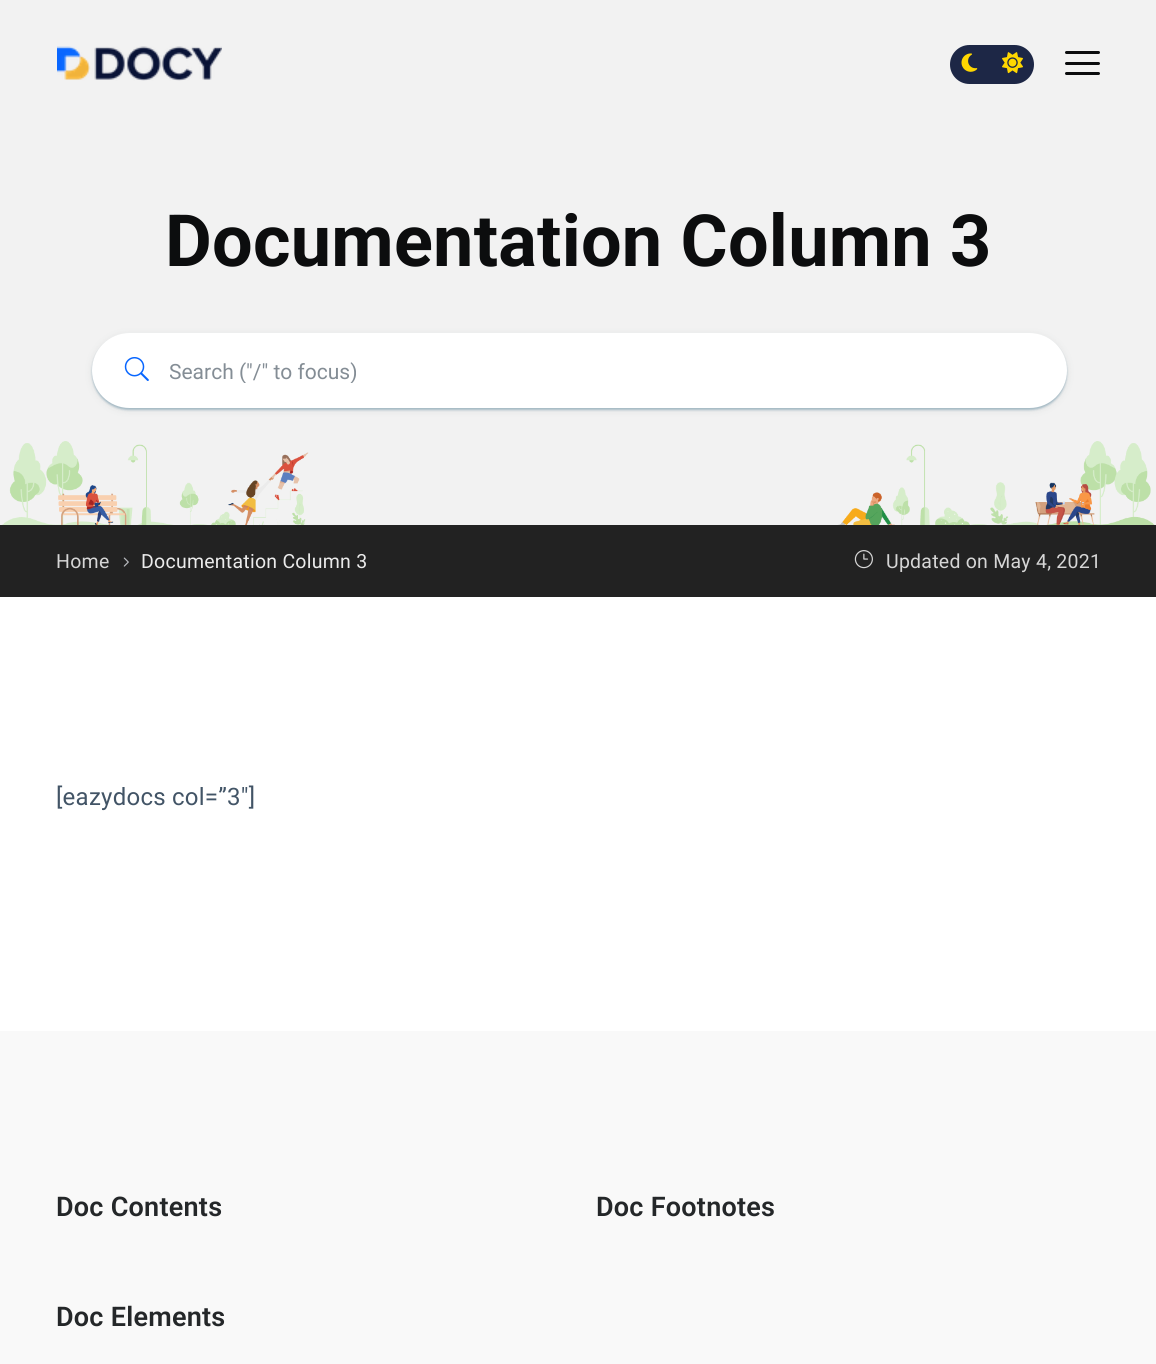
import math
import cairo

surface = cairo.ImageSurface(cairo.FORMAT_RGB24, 1156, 1364)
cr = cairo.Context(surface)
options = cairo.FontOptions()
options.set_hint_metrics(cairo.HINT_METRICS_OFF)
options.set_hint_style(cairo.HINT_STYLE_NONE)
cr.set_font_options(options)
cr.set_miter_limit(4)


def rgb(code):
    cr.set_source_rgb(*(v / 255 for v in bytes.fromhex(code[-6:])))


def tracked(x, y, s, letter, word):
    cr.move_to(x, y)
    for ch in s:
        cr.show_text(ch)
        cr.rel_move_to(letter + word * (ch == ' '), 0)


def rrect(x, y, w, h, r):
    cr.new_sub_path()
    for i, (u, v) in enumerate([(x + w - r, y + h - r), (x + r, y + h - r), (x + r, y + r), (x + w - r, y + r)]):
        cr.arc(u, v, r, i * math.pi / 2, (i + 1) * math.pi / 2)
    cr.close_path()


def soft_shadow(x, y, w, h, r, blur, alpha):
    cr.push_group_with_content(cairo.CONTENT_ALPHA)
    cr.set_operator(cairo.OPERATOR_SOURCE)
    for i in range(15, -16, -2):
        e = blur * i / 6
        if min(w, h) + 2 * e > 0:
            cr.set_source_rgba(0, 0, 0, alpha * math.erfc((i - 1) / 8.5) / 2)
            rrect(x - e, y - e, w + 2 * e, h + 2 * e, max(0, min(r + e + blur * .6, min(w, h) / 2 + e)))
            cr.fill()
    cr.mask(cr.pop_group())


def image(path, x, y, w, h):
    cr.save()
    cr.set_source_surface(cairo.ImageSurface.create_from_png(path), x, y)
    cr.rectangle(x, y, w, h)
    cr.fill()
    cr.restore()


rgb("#ffffff")
cr.paint()
rgb("#f2f2f2")
cr.rectangle(0, 0, 1156, 525)
cr.fill()
image("img/1.png", 57, 46, 165, 35)
rgb("#1d2746")
rrect(950, 45, 84, 39, 19.5)
cr.fill()
image("img/2.png", 961, 53, 17, 19)
image("img/3.png", 1002, 52, 21, 22)
rgb("#0c0d0e")
rrect(1065, 51, 35, 3, 1.5)
cr.fill()
rrect(1065, 62, 35, 3, 1.5)
cr.fill()
rrect(1065, 72, 35, 3, 1.5)
cr.fill()
image("img/4.png", 2, 441, 1153, 84)
rgb("#3c4043")
soft_shadow(92, 335, 975, 75, 37.5, 4, 0.1)
rgb("#0b5073")
soft_shadow(92, 335, 975, 75, 37.5, 1, 0.3)
rgb("#ffffff")
rrect(92, 333, 975, 75, 37.5)
cr.fill()
image("img/5.png", 124, 357, 25, 24)
rgb("#222222")
cr.rectangle(0, 525, 1156, 72)
cr.fill()
image("img/6.png", 123, 557, 6, 10)
image("img/7.png", 854, 550, 19, 19)
rgb("#f9f9f9")
cr.rectangle(0, 1031, 1156, 333)
cr.fill()
cr.select_font_face("Roboto", cairo.FONT_SLANT_NORMAL, cairo.FONT_WEIGHT_BOLD)
cr.set_font_size(72)
rgb("#0c0d0e")
tracked(165, 266, "Documentation Column 3", 0.25, 0)
cr.save()
cr.rectangle(170, 359, 786, 24)
cr.clip()
cr.select_font_face("Roboto")
cr.set_font_size(21)
rgb("#848d95")
cr.move_to(169, 379)
cr.show_text("Search (\"/\" to focus)")
cr.restore()
cr.select_font_face("Roboto")
cr.set_font_size(19.5)
rgb("#d6d6d6")
tracked(56, 568, "Home", 0.25, 0)
rgb("#ebebeb")
tracked(141, 568, "Documentation Column 3", 0.25, 0)
rgb("#d6d6d6")
tracked(886, 568, "Updated on May 4, 2021", 0.25, 0)
cr.set_font_size(24)
rgb("#425466")
tracked(56, 805, "[eazydocs col=”3″]", 0.25, 0)
cr.select_font_face("Roboto SemiBold")
cr.set_font_size(27)
rgb("#242729")
for x, y, s in [
    (56, 1216, "Doc Contents"),
    (596, 1216, "Doc Footnotes"),
    (56, 1326, "Doc Elements"),
]:
    tracked(x, y, s, 0.25, 0)
surface.write_to_png("page.png")
